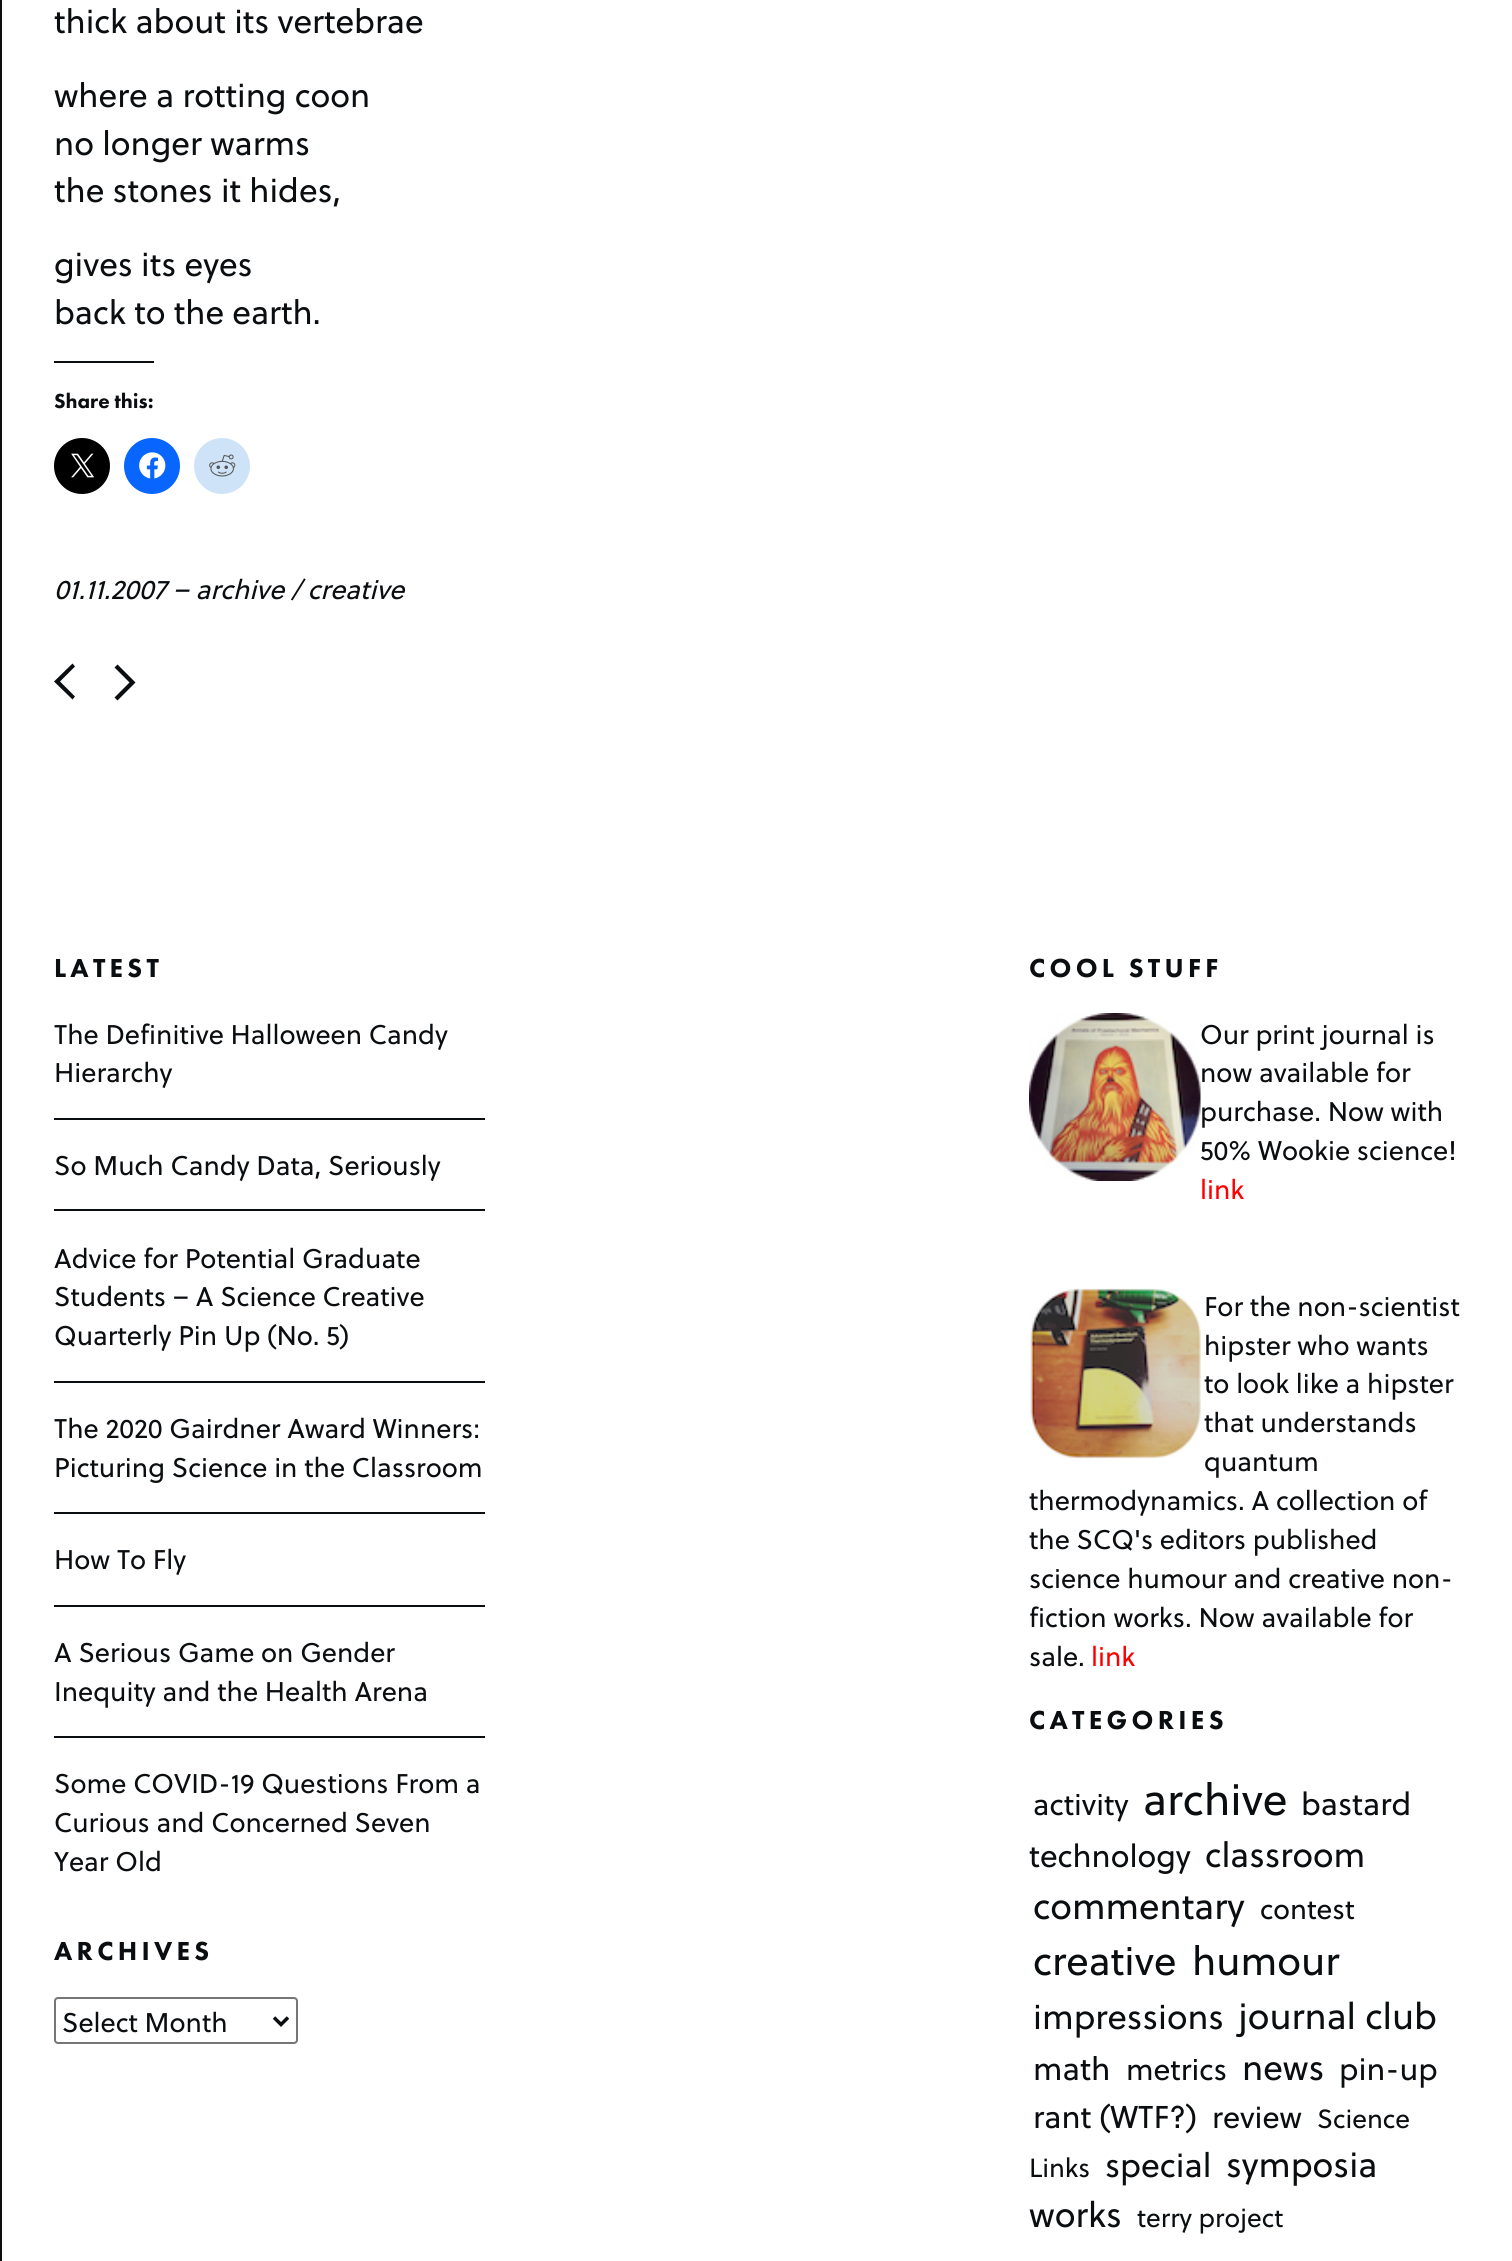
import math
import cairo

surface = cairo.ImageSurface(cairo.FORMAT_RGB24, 1512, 2261)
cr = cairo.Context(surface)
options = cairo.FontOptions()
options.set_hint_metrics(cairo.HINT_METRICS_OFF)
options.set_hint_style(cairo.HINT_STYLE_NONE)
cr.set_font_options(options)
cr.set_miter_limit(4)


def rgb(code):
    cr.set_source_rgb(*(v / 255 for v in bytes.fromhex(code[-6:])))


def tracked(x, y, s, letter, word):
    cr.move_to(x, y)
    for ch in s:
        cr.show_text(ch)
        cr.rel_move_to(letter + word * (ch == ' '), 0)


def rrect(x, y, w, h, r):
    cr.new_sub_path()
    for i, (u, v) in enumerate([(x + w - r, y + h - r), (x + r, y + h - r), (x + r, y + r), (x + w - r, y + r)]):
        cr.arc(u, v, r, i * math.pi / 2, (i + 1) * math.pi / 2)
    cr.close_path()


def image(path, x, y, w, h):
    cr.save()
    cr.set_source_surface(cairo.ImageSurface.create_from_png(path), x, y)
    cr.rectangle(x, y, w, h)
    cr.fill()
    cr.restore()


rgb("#ffffff")
cr.paint()
rgb("#0b0e10")
cr.rectangle(0, 0, 2, 2261)
cr.fill()
cr.rectangle(54, 361, 100, 2)
cr.fill()
rgb("#000000")
cr.arc(82, 466, 28, 0, 2 * math.pi)
cr.fill()
image("img/1.png", 71, 453, 24, 25)
rgb("#0866ff")
cr.arc(152, 466, 28, 0, 2 * math.pi)
cr.fill()
image("img/2.png", 139, 452, 27, 27)
rgb("#cee3f8")
cr.arc(222, 466, 28, 0, 2 * math.pi)
cr.fill()
image("img/3.png", 209, 454, 27, 23)
rgb("#0b0e10")
cr.new_path()
cr.move_to(75, 666.5)
cr.line_to(72.5, 663.5)
cr.line_to(54, 681.5)
cr.line_to(72.5, 699.5)
cr.line_to(75, 696.5)
cr.line_to(60, 681.5)
cr.close_path()
cr.fill()
cr.new_path()
cr.move_to(114.5, 697.5)
cr.line_to(117.5, 700.5)
cr.line_to(135.5, 682.5)
cr.line_to(117.5, 664.5)
cr.line_to(114.5, 667.5)
cr.line_to(129.5, 682.5)
cr.close_path()
cr.fill()
for x, y, w, h, color in [
    (54, 1118, 431, 2, "#0b0e10"),
    (54, 1209, 431, 2, "#0b0e10"),
    (54, 1381, 431, 2, "#0b0e10"),
    (54, 1512, 431, 2, "#0b0e10"),
    (54, 1605, 431, 2, "#0b0e10"),
    (54, 1736, 431, 2, "#0b0e10"),
]:
    rgb(color)
    cr.rectangle(x, y, w, h)
    cr.fill()
rrect(55, 1998, 242, 45, 3)
rgb("#767676")
cr.stroke()
cr.new_path()
cr.move_to(274, 2017.5)
cr.line_to(281, 2024.5)
cr.line_to(288, 2017.5)
rgb("#0b0e10")
cr.set_line_width(3.5)
cr.stroke()
image("img/4.png", 1029, 1013, 172, 168)
image("img/5.png", 1030, 1288, 171, 171)
cr.select_font_face("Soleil")
cr.set_font_size(33.25)
for x, y, s in [
    (54, 33, "thick about its vertebrae"),
    (54, 107, "where a rotting coon"),
    (54, 155, "no longer warms"),
    (54, 202, "the stones it hides,"),
    (54, 276, "gives its eyes"),
    (54, 324, "back to the earth."),
]:
    cr.move_to(x, y)
    cr.show_text(s)
cr.select_font_face("Futura PT Black")
cr.set_font_size(21)
cr.move_to(54, 408)
cr.show_text("Share this:")
cr.select_font_face("Soleil", cairo.FONT_SLANT_ITALIC)
cr.set_font_size(27)
cr.move_to(54, 599)
cr.show_text("01.11.2007 – archive / creative")
cr.select_font_face("Futura PT Black")
tracked(54, 977, "LATEST", 4.25, 0)
cr.select_font_face("Soleil")
for x, y, s in [
    (54, 1044, "The Definitive Halloween Candy"),
    (54, 1082, "Hierarchy"),
    (54, 1175, "So Much Candy Data, Seriously"),
    (54, 1268, "Advice for Potential Graduate"),
    (54, 1306, "Students – A Science Creative"),
    (54, 1345, "Quarterly Pin Up (No. 5)"),
    (54, 1438, "The 2020 Gairdner Award Winners:"),
    (54, 1477, "Picturing Science in the Classroom"),
    (54, 1569, "How To Fly"),
    (54, 1662, "A Serious Game on Gender"),
    (54, 1701, "Inequity and the Health Arena"),
    (54, 1793, "Some COVID-19 Questions From a"),
    (54, 1832, "Curious and Concerned Seven"),
    (54, 1871, "Year Old"),
]:
    cr.move_to(x, y)
    cr.show_text(s)
cr.select_font_face("Futura PT Black")
tracked(54, 1960, "ARCHIVES", 4.25, 0)
cr.select_font_face("Soleil")
cr.move_to(62, 2032)
cr.show_text("Select Month")
cr.select_font_face("Futura PT Black")
tracked(1029, 977, "COOL STUFF", 4.25, 0)
cr.select_font_face("Soleil")
for x, y, s in [
    (1200, 1044, "Our print journal is"),
    (1200, 1082, "now available for"),
    (1200, 1121, "purchase. Now with"),
    (1200, 1160, "50% Wookie science!"),
]:
    cr.move_to(x, y)
    cr.show_text(s)
rgb("#ff0000")
cr.move_to(1200, 1199)
cr.show_text("link")
rgb("#0b0e10")
for x, y, s in [
    (1204, 1316, "For the non-scientist"),
    (1204, 1355, "hipster who wants"),
    (1204, 1393, "to look like a hipster"),
    (1204, 1432, "that understands"),
    (1204, 1471, "quantum"),
    (1029, 1510, "thermodynamics. A collection of"),
    (1029, 1549, "the SCQ's editors published"),
    (1029, 1588, "science humour and creative non-"),
    (1029, 1627, "fiction works. Now available for"),
    (1029, 1666, "sale."),
]:
    cr.move_to(x, y)
    cr.show_text(s)
rgb("#ff0000")
cr.move_to(1091, 1666)
cr.show_text("link")
cr.select_font_face("Futura PT Black")
rgb("#0b0e10")
tracked(1029, 1729, "CATEGORIES", 4.25, 0)
cr.select_font_face("Soleil")
cr.set_font_size(30)
cr.move_to(1033, 1815)
cr.show_text("activity")
cr.set_font_size(44)
cr.move_to(1143, 1815)
cr.show_text("archive")
cr.set_font_size(31.5)
cr.move_to(1301, 1815)
cr.show_text("bastard")
cr.move_to(1029, 1867)
cr.show_text("technology")
cr.set_font_size(34.5)
cr.move_to(1205, 1867)
cr.show_text("classroom")
cr.set_font_size(36.5)
cr.move_to(1033, 1919)
cr.show_text("commentary")
cr.set_font_size(28)
cr.move_to(1260, 1919)
cr.show_text("contest")
cr.set_font_size(40)
cr.move_to(1033, 1975)
cr.show_text("creative")
cr.move_to(1192, 1975)
cr.show_text("humour")
cr.set_font_size(34.5)
cr.move_to(1033, 2029)
cr.show_text("impressions")
cr.set_font_size(36.5)
cr.move_to(1238, 2029)
cr.show_text("journal club")
cr.set_font_size(32)
cr.move_to(1033, 2080)
cr.show_text("math")
cr.set_font_size(30)
cr.move_to(1126, 2080)
cr.show_text("metrics")
cr.set_font_size(35)
cr.move_to(1242, 2080)
cr.show_text("news")
cr.set_font_size(31)
cr.move_to(1339, 2080)
cr.show_text("pin-up")
cr.set_font_size(31.5)
cr.move_to(1033, 2128)
cr.show_text("rant (WTF?)")
cr.set_font_size(30.5)
cr.move_to(1212, 2128)
cr.show_text("review")
cr.set_font_size(26.25)
cr.move_to(1317, 2128)
cr.show_text("Science")
cr.move_to(1029, 2177)
cr.show_text("Links")
cr.set_font_size(33.5)
cr.move_to(1105, 2177)
cr.show_text("special")
cr.set_font_size(35)
cr.move_to(1226, 2177)
cr.show_text("symposia")
cr.move_to(1029, 2227)
cr.show_text("works")
cr.set_font_size(26.25)
cr.move_to(1137, 2227)
cr.show_text("terry project")
surface.write_to_png("page.png")
